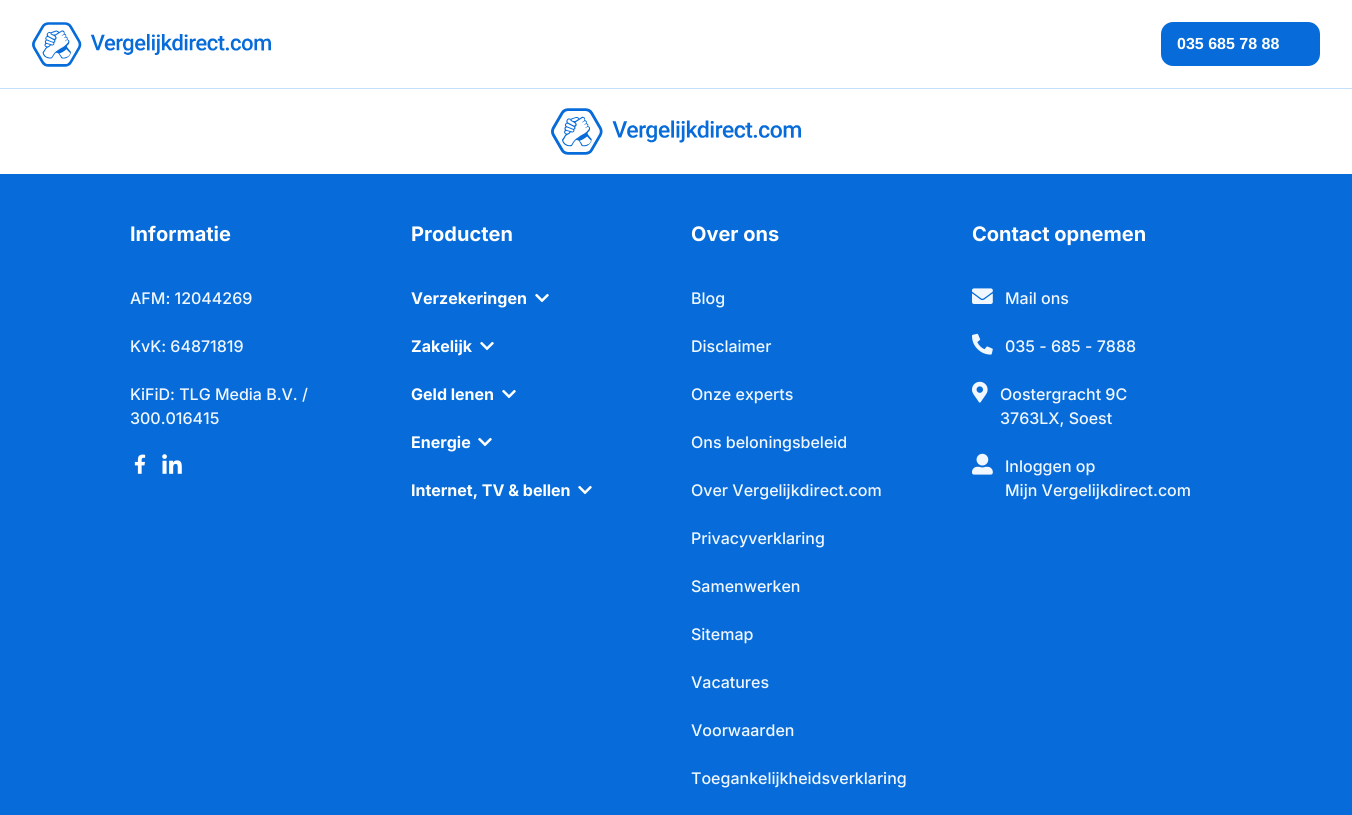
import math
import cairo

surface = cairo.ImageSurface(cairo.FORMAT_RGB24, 1352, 815)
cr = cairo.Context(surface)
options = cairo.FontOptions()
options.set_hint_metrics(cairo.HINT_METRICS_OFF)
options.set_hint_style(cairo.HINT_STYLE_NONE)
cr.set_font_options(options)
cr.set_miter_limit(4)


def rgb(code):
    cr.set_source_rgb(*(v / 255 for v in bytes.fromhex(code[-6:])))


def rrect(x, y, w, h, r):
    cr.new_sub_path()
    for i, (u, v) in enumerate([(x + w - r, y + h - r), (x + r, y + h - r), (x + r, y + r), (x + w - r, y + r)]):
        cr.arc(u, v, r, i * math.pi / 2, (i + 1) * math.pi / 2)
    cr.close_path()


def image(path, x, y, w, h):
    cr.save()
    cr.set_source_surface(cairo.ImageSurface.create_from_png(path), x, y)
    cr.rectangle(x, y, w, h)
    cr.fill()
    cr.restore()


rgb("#ffffff")
cr.paint()
rgb("#c4dffd")
cr.rectangle(0, 88, 1352, 1)
cr.fill()
image("img/1.png", 32, 22, 239, 45)
rgb("#076cd9")
rrect(1161, 22, 159, 44, 12)
cr.fill()
image("img/2.png", 551, 108, 250, 47)
cr.rectangle(0, 174, 1352, 641)
cr.fill()
image("img/3.png", 134, 454, 12, 20)
image("img/4.png", 162, 454, 20, 20)
image("img/5.png", 535, 293, 14, 10)
image("img/5.png", 480, 341, 14, 10)
image("img/5.png", 502, 389, 14, 10)
image("img/5.png", 478, 437, 14, 10)
image("img/5.png", 578, 485, 14, 10)
image("img/6.png", 972, 288, 21, 16)
image("img/7.png", 972, 333, 21, 22)
image("img/8.png", 972, 381, 16, 22)
image("img/9.png", 972, 453, 21, 22)
cr.select_font_face("Liberation Sans", cairo.FONT_SLANT_NORMAL, cairo.FONT_WEIGHT_BOLD)
cr.set_font_size(16)
rgb("#ffffff")
cr.move_to(1177, 49)
cr.show_text("035 685 78 88")
cr.select_font_face("Inter", cairo.FONT_SLANT_NORMAL, cairo.FONT_WEIGHT_BOLD)
cr.set_font_size(20)
cr.move_to(130, 241)
cr.show_text("Informatie")
cr.select_font_face("Inter Medium")
cr.set_font_size(16)
rgb("#f0f7ff")
for x, y, s in [
    (130, 304, "AFM: 12044269"),
    (130, 352, "KvK: 64871819"),
    (130, 400, "KiFiD: TLG Media B.V. /"),
    (130, 424, "300.016415"),
]:
    cr.move_to(x, y)
    cr.show_text(s)
cr.select_font_face("Inter", cairo.FONT_SLANT_NORMAL, cairo.FONT_WEIGHT_BOLD)
cr.set_font_size(20)
rgb("#ffffff")
cr.move_to(411, 241)
cr.show_text("Producten")
cr.set_font_size(16)
for x, y, s in [
    (411, 304, "Verzekeringen"),
    (411, 352, "Zakelijk"),
    (411, 400, "Geld lenen"),
    (411, 448, "Energie"),
    (411, 496, "Internet, TV & bellen"),
]:
    cr.move_to(x, y)
    cr.show_text(s)
cr.set_font_size(20)
cr.move_to(691, 241)
cr.show_text("Over ons")
cr.select_font_face("Inter Medium")
cr.set_font_size(16)
rgb("#f0f7ff")
for x, y, s in [
    (691, 304, "Blog"),
    (691, 352, "Disclaimer"),
    (691, 400, "Onze experts"),
    (691, 448, "Ons beloningsbeleid"),
    (691, 496, "Over Vergelijkdirect.com"),
    (691, 544, "Privacyverklaring"),
    (691, 592, "Samenwerken"),
    (691, 640, "Sitemap"),
    (691, 688, "Vacatures"),
    (691, 736, "Voorwaarden"),
    (691, 784, "Toegankelijkheidsverklaring"),
]:
    cr.move_to(x, y)
    cr.show_text(s)
cr.select_font_face("Inter", cairo.FONT_SLANT_NORMAL, cairo.FONT_WEIGHT_BOLD)
cr.set_font_size(20)
rgb("#ffffff")
cr.move_to(972, 241)
cr.show_text("Contact opnemen")
cr.select_font_face("Inter Medium")
cr.set_font_size(16)
rgb("#f0f7ff")
for x, y, s in [
    (1005, 304, "Mail ons"),
    (1005, 352, "035 - 685 - 7888"),
    (1000, 400, "Oostergracht 9C"),
    (1000, 424, "3763LX, Soest"),
    (1005, 472, "Inloggen op"),
    (1005, 496, "Mijn Vergelijkdirect.com"),
]:
    cr.move_to(x, y)
    cr.show_text(s)
surface.write_to_png("page.png")
